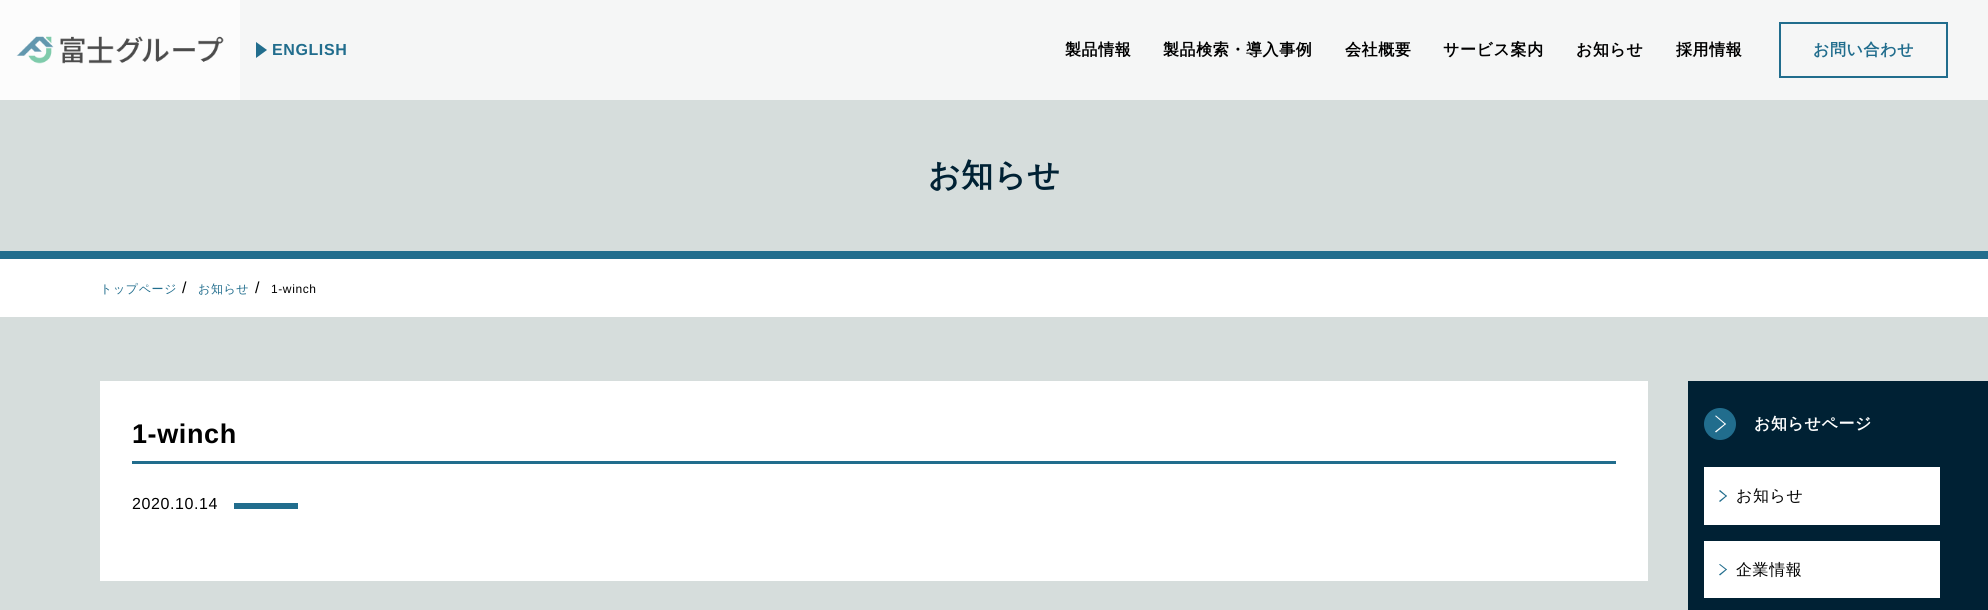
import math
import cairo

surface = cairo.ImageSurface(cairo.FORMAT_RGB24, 1988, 610)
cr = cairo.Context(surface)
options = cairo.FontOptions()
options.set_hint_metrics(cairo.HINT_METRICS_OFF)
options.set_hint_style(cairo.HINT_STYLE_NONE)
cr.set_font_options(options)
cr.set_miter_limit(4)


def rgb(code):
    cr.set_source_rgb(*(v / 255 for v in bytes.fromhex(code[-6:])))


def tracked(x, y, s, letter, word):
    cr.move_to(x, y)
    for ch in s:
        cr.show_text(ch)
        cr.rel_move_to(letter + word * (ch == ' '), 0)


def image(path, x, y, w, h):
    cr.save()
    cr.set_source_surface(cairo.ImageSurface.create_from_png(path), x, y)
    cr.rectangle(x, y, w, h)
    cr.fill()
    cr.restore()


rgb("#d6dddc")
cr.paint()
rgb("#f5f6f6")
cr.rectangle(240, 0, 1748, 100)
cr.fill()
rgb("#fcfcfc")
cr.rectangle(0, 0, 240, 100)
cr.fill()
image("img/1.png", 16, 36, 208, 28)
rgb("#216d8d")
cr.new_path()
cr.move_to(256, 58)
cr.line_to(256, 42)
cr.line_to(267, 50)
cr.close_path()
cr.fill()
cr.rectangle(1780, 23, 167, 54)
cr.stroke()
for x, y, w, h, color in [
    (0, 251, 1988, 8, "#216d8d"),
    (0, 259, 1988, 58, "#ffffff"),
    (100, 381, 1548, 200, "#ffffff"),
    (132, 461, 1484, 3, "#216d8d"),
    (234, 503, 64, 6, "#216d8d"),
    (1688, 381, 300, 229, "#002134"),
]:
    rgb(color)
    cr.rectangle(x, y, w, h)
    cr.fill()
rgb("#216d8d")
cr.arc(1720, 424, 16, 0, 2 * math.pi)
cr.fill()
rgb("#ffffff")
cr.new_path()
cr.move_to(1715, 416)
cr.line_to(1716, 415.5)
cr.line_to(1726, 424)
cr.line_to(1725, 424.5)
cr.close_path()
cr.fill()
cr.new_path()
cr.move_to(1715, 431.5)
cr.line_to(1725, 423.5)
cr.line_to(1726, 424)
cr.line_to(1716, 432.5)
cr.close_path()
cr.fill()
cr.rectangle(1704, 467, 236, 58)
cr.fill()
rgb("#216d8d")
cr.new_path()
cr.move_to(1719, 491)
cr.line_to(1720, 490)
cr.line_to(1727, 496)
cr.line_to(1726, 496.5)
cr.close_path()
cr.fill()
cr.new_path()
cr.move_to(1719, 501)
cr.line_to(1726, 495.5)
cr.line_to(1727, 496)
cr.line_to(1720, 502)
cr.close_path()
cr.fill()
rgb("#ffffff")
cr.rectangle(1704, 541, 236, 57)
cr.fill()
rgb("#216d8d")
cr.new_path()
cr.move_to(1719, 564.5)
cr.line_to(1720, 564)
cr.line_to(1727, 569.5)
cr.line_to(1726, 570)
cr.close_path()
cr.fill()
cr.new_path()
cr.move_to(1719, 574.5)
cr.line_to(1726, 569)
cr.line_to(1727, 569.5)
cr.line_to(1720, 575.5)
cr.close_path()
cr.fill()
cr.select_font_face("Liberation Sans", cairo.FONT_SLANT_NORMAL, cairo.FONT_WEIGHT_BOLD)
cr.set_font_size(16)
tracked(272, 55, "ENGLISH", 0.6, 0)
cr.select_font_face("WenQuanYi Zen Hei", cairo.FONT_SLANT_NORMAL, cairo.FONT_WEIGHT_BOLD)
rgb("#000000")
for x, y, s in [
    (1065, 55, "製品情報"),
    (1163, 55, "製品検索・導入事例"),
    (1345, 55, "会社概要"),
    (1443, 55, "サービス案内"),
    (1576, 55, "お知らせ"),
    (1676, 55, "採用情報"),
]:
    tracked(x, y, s, 0.6, 0)
rgb("#216d8d")
tracked(1813, 55, "お問い合わせ", 0.6, 0)
cr.set_font_size(32)
rgb("#002134")
tracked(928, 186, "お知らせ", 0.6, 0)
cr.select_font_face("WenQuanYi Zen Hei Medium")
cr.set_font_size(12)
rgb("#216d8d")
tracked(100, 293, "トップページ", 0.6, 0)
cr.select_font_face("Liberation Sans")
cr.set_font_size(16)
rgb("#000000")
tracked(182, 293, "/", 0.6, 0)
cr.select_font_face("WenQuanYi Zen Hei Medium")
cr.set_font_size(12)
rgb("#216d8d")
tracked(198, 293, "お知らせ", 0.6, 0)
cr.select_font_face("Liberation Sans")
cr.set_font_size(16)
rgb("#000000")
tracked(255, 293, "/", 0.6, 0)
cr.set_font_size(12)
tracked(271, 293, "1-winch", 0.6, 0)
cr.select_font_face("Liberation Sans", cairo.FONT_SLANT_NORMAL, cairo.FONT_WEIGHT_BOLD)
cr.set_font_size(27)
tracked(132, 443, "1-winch", 0.6, 0)
cr.select_font_face("Liberation Sans")
cr.set_font_size(16)
tracked(132, 509, "2020.10.14", 0.6, 0)
cr.select_font_face("WenQuanYi Zen Hei", cairo.FONT_SLANT_NORMAL, cairo.FONT_WEIGHT_BOLD)
rgb("#ffffff")
tracked(1754, 429, "お知らせページ", 0.6, 0)
cr.select_font_face("WenQuanYi Zen Hei Medium")
rgb("#000000")
tracked(1736, 501, "お知らせ", 0.6, 0)
tracked(1736, 575, "企業情報", 0.6, 0)
surface.write_to_png("page.png")
